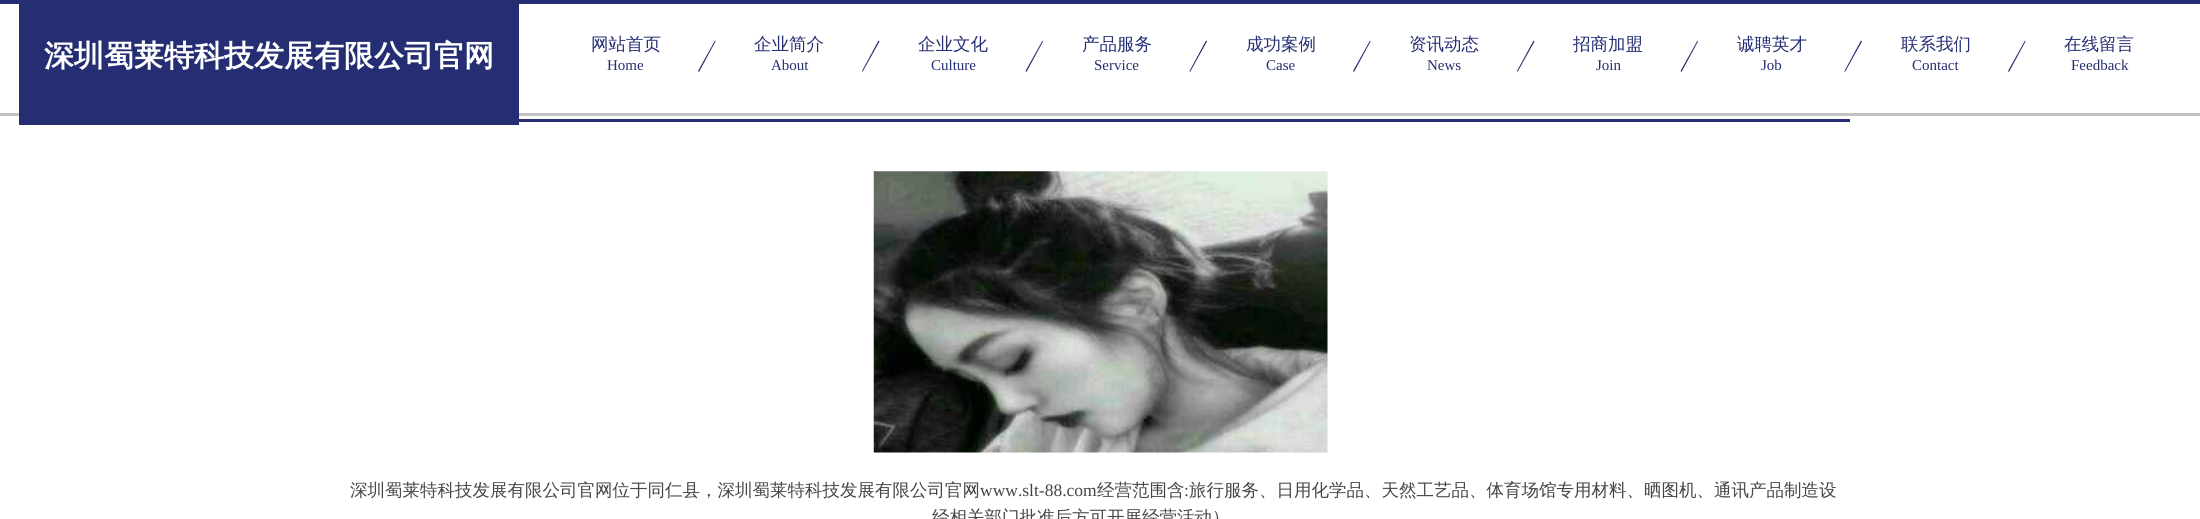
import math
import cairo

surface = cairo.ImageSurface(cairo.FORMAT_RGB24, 2200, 519)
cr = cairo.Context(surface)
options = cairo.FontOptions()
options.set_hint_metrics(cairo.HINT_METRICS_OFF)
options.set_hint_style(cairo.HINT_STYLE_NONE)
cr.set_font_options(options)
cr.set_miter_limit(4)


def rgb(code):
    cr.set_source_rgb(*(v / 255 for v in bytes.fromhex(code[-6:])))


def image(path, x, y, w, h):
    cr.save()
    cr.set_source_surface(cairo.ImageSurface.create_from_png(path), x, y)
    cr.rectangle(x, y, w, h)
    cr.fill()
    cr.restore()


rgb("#ffffff")
cr.paint()
for x, y, w, h, color in [
    (0, 0, 2200, 4, "#252e72"),
    (0, 113, 2200, 3, "#c2c2c2"),
    (19, 4, 500, 121, "#252e72"),
]:
    rgb(color)
    cr.rectangle(x, y, w, h)
    cr.fill()
cr.new_path()
cr.move_to(715, 40.5)
cr.line_to(715.5, 41.5)
cr.line_to(699, 72)
cr.line_to(698, 71)
cr.close_path()
cr.fill()
cr.new_path()
cr.move_to(878.5, 40.5)
cr.line_to(879.5, 41.5)
cr.line_to(862.5, 72)
cr.line_to(862, 71)
cr.close_path()
cr.fill()
cr.new_path()
cr.move_to(1042.5, 40.5)
cr.line_to(1043, 41.5)
cr.line_to(1026.5, 72)
cr.line_to(1025.5, 71)
cr.close_path()
cr.fill()
cr.new_path()
cr.move_to(1206, 40.5)
cr.line_to(1207, 41.5)
cr.line_to(1190, 72)
cr.line_to(1189.5, 71)
cr.close_path()
cr.fill()
cr.new_path()
cr.move_to(1370, 40.5)
cr.line_to(1370.5, 41.5)
cr.line_to(1354, 72)
cr.line_to(1353, 71)
cr.close_path()
cr.fill()
cr.new_path()
cr.move_to(1533.5, 40.5)
cr.line_to(1534.5, 41.5)
cr.line_to(1517.5, 72)
cr.line_to(1517, 71)
cr.close_path()
cr.fill()
cr.new_path()
cr.move_to(1697.5, 40.5)
cr.line_to(1698, 41.5)
cr.line_to(1681.5, 72)
cr.line_to(1680.5, 71)
cr.close_path()
cr.fill()
cr.new_path()
cr.move_to(1861, 40.5)
cr.line_to(1862, 41.5)
cr.line_to(1845, 72)
cr.line_to(1844.5, 71)
cr.close_path()
cr.fill()
cr.new_path()
cr.move_to(2025, 40.5)
cr.line_to(2025.5, 41.5)
cr.line_to(2009, 72)
cr.line_to(2008, 71)
cr.close_path()
cr.fill()
cr.rectangle(519, 119, 1331, 3)
cr.fill()
image("img/1.png", 873, 171, 455, 282)
cr.select_font_face("WenQuanYi Zen Hei", cairo.FONT_SLANT_NORMAL, cairo.FONT_WEIGHT_BOLD)
cr.set_font_size(30)
rgb("#ffffff")
cr.move_to(44, 66)
cr.show_text("深圳蜀莱特科技发展有限公司官网")
cr.select_font_face("WenQuanYi Zen Hei Medium")
cr.set_font_size(17.5)
rgb("#252e72")
cr.move_to(591, 50)
cr.show_text("网站首页")
cr.select_font_face("Liberation Serif")
cr.set_font_size(15)
cr.move_to(607, 70)
cr.show_text("Home")
cr.select_font_face("WenQuanYi Zen Hei Medium")
cr.set_font_size(17.5)
cr.move_to(754, 50)
cr.show_text("企业简介")
cr.select_font_face("Liberation Serif")
cr.set_font_size(15)
cr.move_to(771, 70)
cr.show_text("About")
cr.select_font_face("WenQuanYi Zen Hei Medium")
cr.set_font_size(17.5)
cr.move_to(918, 50)
cr.show_text("企业文化")
cr.select_font_face("Liberation Serif")
cr.set_font_size(15)
cr.move_to(931, 70)
cr.show_text("Culture")
cr.select_font_face("WenQuanYi Zen Hei Medium")
cr.set_font_size(17.5)
cr.move_to(1082, 50)
cr.show_text("产品服务")
cr.select_font_face("Liberation Serif")
cr.set_font_size(15)
cr.move_to(1094, 70)
cr.show_text("Service")
cr.select_font_face("WenQuanYi Zen Hei Medium")
cr.set_font_size(17.5)
cr.move_to(1246, 50)
cr.show_text("成功案例")
cr.select_font_face("Liberation Serif")
cr.set_font_size(15)
cr.move_to(1266, 70)
cr.show_text("Case")
cr.select_font_face("WenQuanYi Zen Hei Medium")
cr.set_font_size(17.5)
cr.move_to(1409, 50)
cr.show_text("资讯动态")
cr.select_font_face("Liberation Serif")
cr.set_font_size(15)
cr.move_to(1427, 70)
cr.show_text("News")
cr.select_font_face("WenQuanYi Zen Hei Medium")
cr.set_font_size(17.5)
cr.move_to(1573, 50)
cr.show_text("招商加盟")
cr.select_font_face("Liberation Serif")
cr.set_font_size(15)
cr.move_to(1596, 70)
cr.show_text("Join")
cr.select_font_face("WenQuanYi Zen Hei Medium")
cr.set_font_size(17.5)
cr.move_to(1737, 50)
cr.show_text("诚聘英才")
cr.select_font_face("Liberation Serif")
cr.set_font_size(15)
cr.move_to(1761, 70)
cr.show_text("Job")
cr.select_font_face("WenQuanYi Zen Hei Medium")
cr.set_font_size(17.5)
cr.move_to(1901, 50)
cr.show_text("联系我们")
cr.select_font_face("Liberation Serif")
cr.set_font_size(15)
cr.move_to(1912, 70)
cr.show_text("Contact")
cr.select_font_face("WenQuanYi Zen Hei Medium")
cr.set_font_size(17.5)
cr.move_to(2064, 50)
cr.show_text("在线留言")
cr.select_font_face("Liberation Serif")
cr.set_font_size(15)
cr.move_to(2071, 70)
cr.show_text("Feedback")
cr.select_font_face("WenQuanYi Zen Hei Medium")
cr.set_font_size(17.5)
rgb("#454545")
cr.move_to(350, 496)
cr.show_text("深圳蜀莱特科技发展有限公司官网位于同仁县，深圳蜀莱特科技发展有限公司官网")
cr.select_font_face("Liberation Serif")
cr.move_to(980, 496)
cr.show_text("www.slt-88.com")
cr.select_font_face("WenQuanYi Zen Hei Medium")
cr.move_to(1097, 496)
cr.show_text("经营范围含")
cr.select_font_face("Liberation Serif")
cr.move_to(1184, 496)
cr.show_text(":")
cr.select_font_face("WenQuanYi Zen Hei Medium")
cr.move_to(1189, 496)
cr.show_text("旅行服务、日用化学品、天然工艺品、体育场馆专用材料、晒图机、通讯产品制造设")
cr.move_to(932, 523)
cr.show_text("经相关部门批准后方可开展经营活动）")
surface.write_to_png("page.png")
